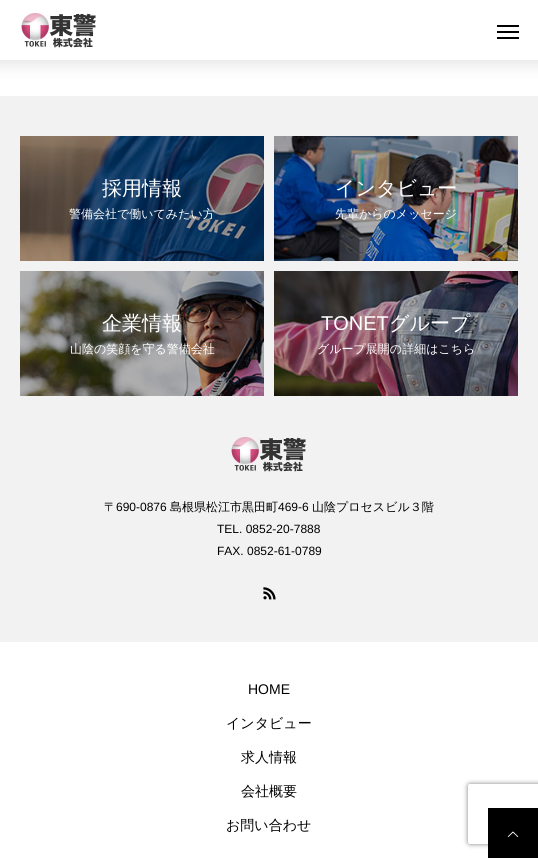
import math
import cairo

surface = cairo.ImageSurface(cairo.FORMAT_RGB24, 538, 858)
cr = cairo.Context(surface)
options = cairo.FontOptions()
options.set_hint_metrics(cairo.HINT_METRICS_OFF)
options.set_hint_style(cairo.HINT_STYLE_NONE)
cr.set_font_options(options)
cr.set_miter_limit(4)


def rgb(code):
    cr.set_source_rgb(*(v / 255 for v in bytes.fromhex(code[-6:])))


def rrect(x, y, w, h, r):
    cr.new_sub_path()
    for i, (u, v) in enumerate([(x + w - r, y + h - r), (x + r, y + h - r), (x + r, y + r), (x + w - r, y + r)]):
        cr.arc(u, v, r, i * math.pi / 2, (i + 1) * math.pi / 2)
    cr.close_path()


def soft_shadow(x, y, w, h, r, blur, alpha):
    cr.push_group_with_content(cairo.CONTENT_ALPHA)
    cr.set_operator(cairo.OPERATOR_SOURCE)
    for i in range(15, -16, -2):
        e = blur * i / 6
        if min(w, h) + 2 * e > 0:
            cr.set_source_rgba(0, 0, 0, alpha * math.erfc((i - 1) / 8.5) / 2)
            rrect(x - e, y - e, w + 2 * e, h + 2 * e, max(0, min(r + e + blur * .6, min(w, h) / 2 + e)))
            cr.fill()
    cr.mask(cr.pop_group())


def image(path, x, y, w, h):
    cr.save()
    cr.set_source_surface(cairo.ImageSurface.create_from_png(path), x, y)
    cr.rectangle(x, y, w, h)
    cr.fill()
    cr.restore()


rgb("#ffffff")
cr.paint()
rgb("#000000")
soft_shadow(-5, -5, 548, 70, 0, 7.5, 0.1)
rgb("#ffffff")
cr.rectangle(0, 0, 538, 60)
cr.fill()
image("img/1.png", 21, 13, 75, 35)
for x, y, w, h, color in [
    (497, 25, 22, 2, "#000000"),
    (497, 31, 22, 2, "#000000"),
    (497, 37, 22, 2, "#000000"),
    (0, 96, 538, 546, "#f2f2f2"),
]:
    rgb(color)
    cr.rectangle(x, y, w, h)
    cr.fill()
image("img/2.png", 20, 136, 244, 125)
image("img/3.png", 274, 136, 244, 125)
image("img/4.png", 20, 271, 244, 125)
image("img/5.png", 274, 271, 244, 125)
image("img/6.png", 231, 437, 75, 35)
image("img/7.png", 263, 587, 13, 13)
cr.save()
cr.set_fill_rule(cairo.FILL_RULE_EVEN_ODD)
cr.new_path()
cr.move_to(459, 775)
cr.line_to(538, 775)
cr.line_to(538, 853)
cr.line_to(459, 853)
cr.close_path()
cr.move_to(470, 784)
cr.line_to(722, 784)
cr.curve_to(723, 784, 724, 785, 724, 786)
cr.line_to(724, 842)
cr.curve_to(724, 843, 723, 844, 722, 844)
cr.line_to(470, 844)
cr.curve_to(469, 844, 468, 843, 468, 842)
cr.line_to(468, 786)
cr.curve_to(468, 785, 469, 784, 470, 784)
cr.close_path()
cr.clip()
rgb("#808080")
soft_shadow(468, 784, 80, 60, 2, 2.5, 1)
cr.restore()
rgb("#000000")
cr.rectangle(488, 808, 50, 50)
cr.fill()
image("img/8.png", 507, 831, 12, 6)
cr.select_font_face("WenQuanYi Zen Hei Medium")
cr.set_font_size(20)
rgb("#ffffff")
cr.move_to(102, 195)
cr.show_text("採用情報")
cr.set_font_size(12)
cr.move_to(69, 218)
cr.show_text("警備会社で働いてみたい方")
cr.set_font_size(20)
cr.move_to(335, 195)
cr.show_text("インタビュー")
cr.set_font_size(12)
cr.move_to(335, 218)
cr.show_text("先輩からのメッセージ")
cr.set_font_size(20)
cr.move_to(102, 330)
cr.show_text("企業情報")
cr.set_font_size(12)
cr.move_to(70, 353)
cr.show_text("山陰の笑顔を守る警備会社")
cr.select_font_face("Liberation Sans")
cr.set_font_size(20)
cr.move_to(321, 330)
cr.show_text("TONET")
cr.select_font_face("WenQuanYi Zen Hei Medium")
cr.move_to(389, 330)
cr.show_text("グループ")
cr.set_font_size(12)
cr.move_to(317, 353)
cr.show_text("グループ展開の詳細はこちら")
rgb("#000000")
cr.move_to(104, 511)
cr.show_text("〒")
cr.select_font_face("Liberation Sans")
cr.move_to(116, 511)
cr.show_text("690-0876")
cr.select_font_face("WenQuanYi Zen Hei Medium")
cr.move_to(170, 511)
cr.show_text("島根県松江市黒田町")
cr.select_font_face("Liberation Sans")
cr.move_to(278, 511)
cr.show_text("469-6")
cr.select_font_face("WenQuanYi Zen Hei Medium")
cr.move_to(312, 511)
cr.show_text("山陰プロセスビル３階")
cr.select_font_face("Liberation Sans")
cr.move_to(217, 533)
cr.show_text("TEL. 0852-20-7888")
cr.move_to(217, 555)
cr.show_text("FAX. 0852-61-0789")
cr.set_font_size(14)
cr.move_to(248, 694)
cr.show_text("HOME")
cr.select_font_face("WenQuanYi Zen Hei Medium")
for x, y, s in [
    (226, 728, "インタビュー"),
    (241, 762, "求人情報"),
    (241, 796, "会社概要"),
    (226, 830, "お問い合わせ"),
]:
    cr.move_to(x, y)
    cr.show_text(s)
surface.write_to_png("page.png")
